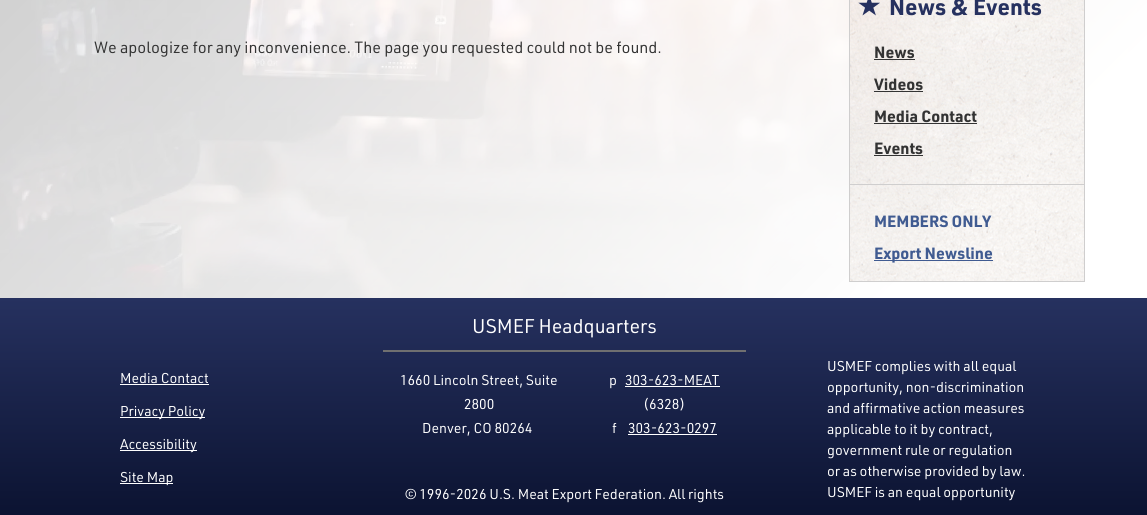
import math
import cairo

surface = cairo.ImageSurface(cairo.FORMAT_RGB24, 1147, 515)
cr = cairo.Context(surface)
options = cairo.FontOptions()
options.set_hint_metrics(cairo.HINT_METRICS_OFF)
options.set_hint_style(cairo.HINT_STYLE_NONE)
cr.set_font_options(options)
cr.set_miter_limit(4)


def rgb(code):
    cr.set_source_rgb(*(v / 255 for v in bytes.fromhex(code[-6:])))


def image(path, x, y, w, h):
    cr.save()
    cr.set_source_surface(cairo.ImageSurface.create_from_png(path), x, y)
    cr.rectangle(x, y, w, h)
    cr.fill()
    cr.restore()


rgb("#ffffff")
cr.paint()
image("img/1.png", 0, 0, 1147, 298)
gradient = cairo.LinearGradient(156, -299, 991, 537)
gradient.add_color_stop_rgba(0, 1, 1, 1, 0)
gradient.add_color_stop_rgba(0.8, 1, 1, 1, 1)
cr.set_source(gradient)
cr.rectangle(0, 0, 1147, 298)
cr.fill()
image("img/2.png", 850, 0, 234, 281)
cr.rectangle(849.5, -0.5, 235, 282)
rgb("#cfcece")
cr.set_line_width(1)
cr.stroke()
image("img/3.png", 858, 0, 22, 16)
for x, y, w, h, color in [
    (874, 59, 41, 1, "#333333"),
    (874, 91, 49, 1, "#333333"),
    (874, 123, 103, 1, "#333333"),
    (874, 155, 49, 1, "#333333"),
    (850, 184, 234, 1, "#cfcece"),
    (874, 260, 119, 1, "#405b91"),
]:
    rgb(color)
    cr.rectangle(x, y, w, h)
    cr.fill()
gradient = cairo.LinearGradient(574, 298, 574, 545)
gradient.add_color_stop_rgba(0, 0.149, 0.192, 0.373, 1)
gradient.add_color_stop_rgba(1, 0.031, 0.059, 0.169, 1)
cr.set_source(gradient)
cr.rectangle(0, 298, 1147, 217)
cr.fill()
for x, y, w, h, color in [
    (120, 384, 89, 1, "#ffffff"),
    (120, 417, 85, 1, "#ffffff"),
    (120, 450, 77, 1, "#ffffff"),
    (120, 483, 53, 1, "#ffffff"),
    (383, 350, 363, 2, "#707070"),
    (625, 386, 95, 1, "#ffffff"),
    (628, 434, 89, 1, "#ffffff"),
]:
    rgb(color)
    cr.rectangle(x, y, w, h)
    cr.fill()
cr.select_font_face("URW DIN")
cr.set_font_size(16)
rgb("#333333")
cr.move_to(94, 53)
cr.show_text("We apologize for any inconvenience. The page you requested could not be found.")
cr.select_font_face("URW DIN", cairo.FONT_SLANT_NORMAL, cairo.FONT_WEIGHT_BOLD)
cr.set_font_size(22.5)
rgb("#26315f")
cr.move_to(889, 15)
cr.show_text("News & Events")
cr.set_font_size(16)
rgb("#333333")
for x, y, s in [
    (874, 58, "News"),
    (874, 90, "Videos"),
    (874, 122, "Media Contact"),
    (874, 154, "Events"),
]:
    cr.move_to(x, y)
    cr.show_text(s)
rgb("#405b91")
cr.move_to(874, 227)
cr.show_text("MEMBERS ONLY")
cr.move_to(874, 259)
cr.show_text("Export Newsline")
cr.select_font_face("URW DIN")
cr.set_font_size(14)
rgb("#ffffff")
for x, y, s in [
    (120, 383, "Media Contact"),
    (120, 416, "Privacy Policy"),
    (120, 449, "Accessibility"),
    (120, 482, "Site Map"),
]:
    cr.move_to(x, y)
    cr.show_text(s)
cr.set_font_size(19.5)
cr.move_to(472, 333)
cr.show_text("USMEF Headquarters")
cr.set_font_size(14)
for x, y, s in [
    (400, 385, "1660 Lincoln Street, Suite"),
    (464, 409, "2800"),
    (422, 433, "Denver, CO 80264"),
    (609, 385, "p"),
    (625, 385, "303-623-MEAT"),
    (643, 409, "(6328)"),
    (612, 433, "f"),
    (628, 433, "303-623-0297"),
    (405, 499, "© 1996-2026 U.S. Meat Export Federation. All rights"),
    (827, 371, "USMEF complies with all equal"),
    (827, 392, "opportunity, non-discrimination"),
    (827, 413, "and affirmative action measures"),
    (827, 434, "applicable to it by contract,"),
    (827, 455, "government rule or regulation"),
    (827, 476, "or as otherwise provided by law."),
    (827, 497, "USMEF is an equal opportunity"),
]:
    cr.move_to(x, y)
    cr.show_text(s)
surface.write_to_png("page.png")
